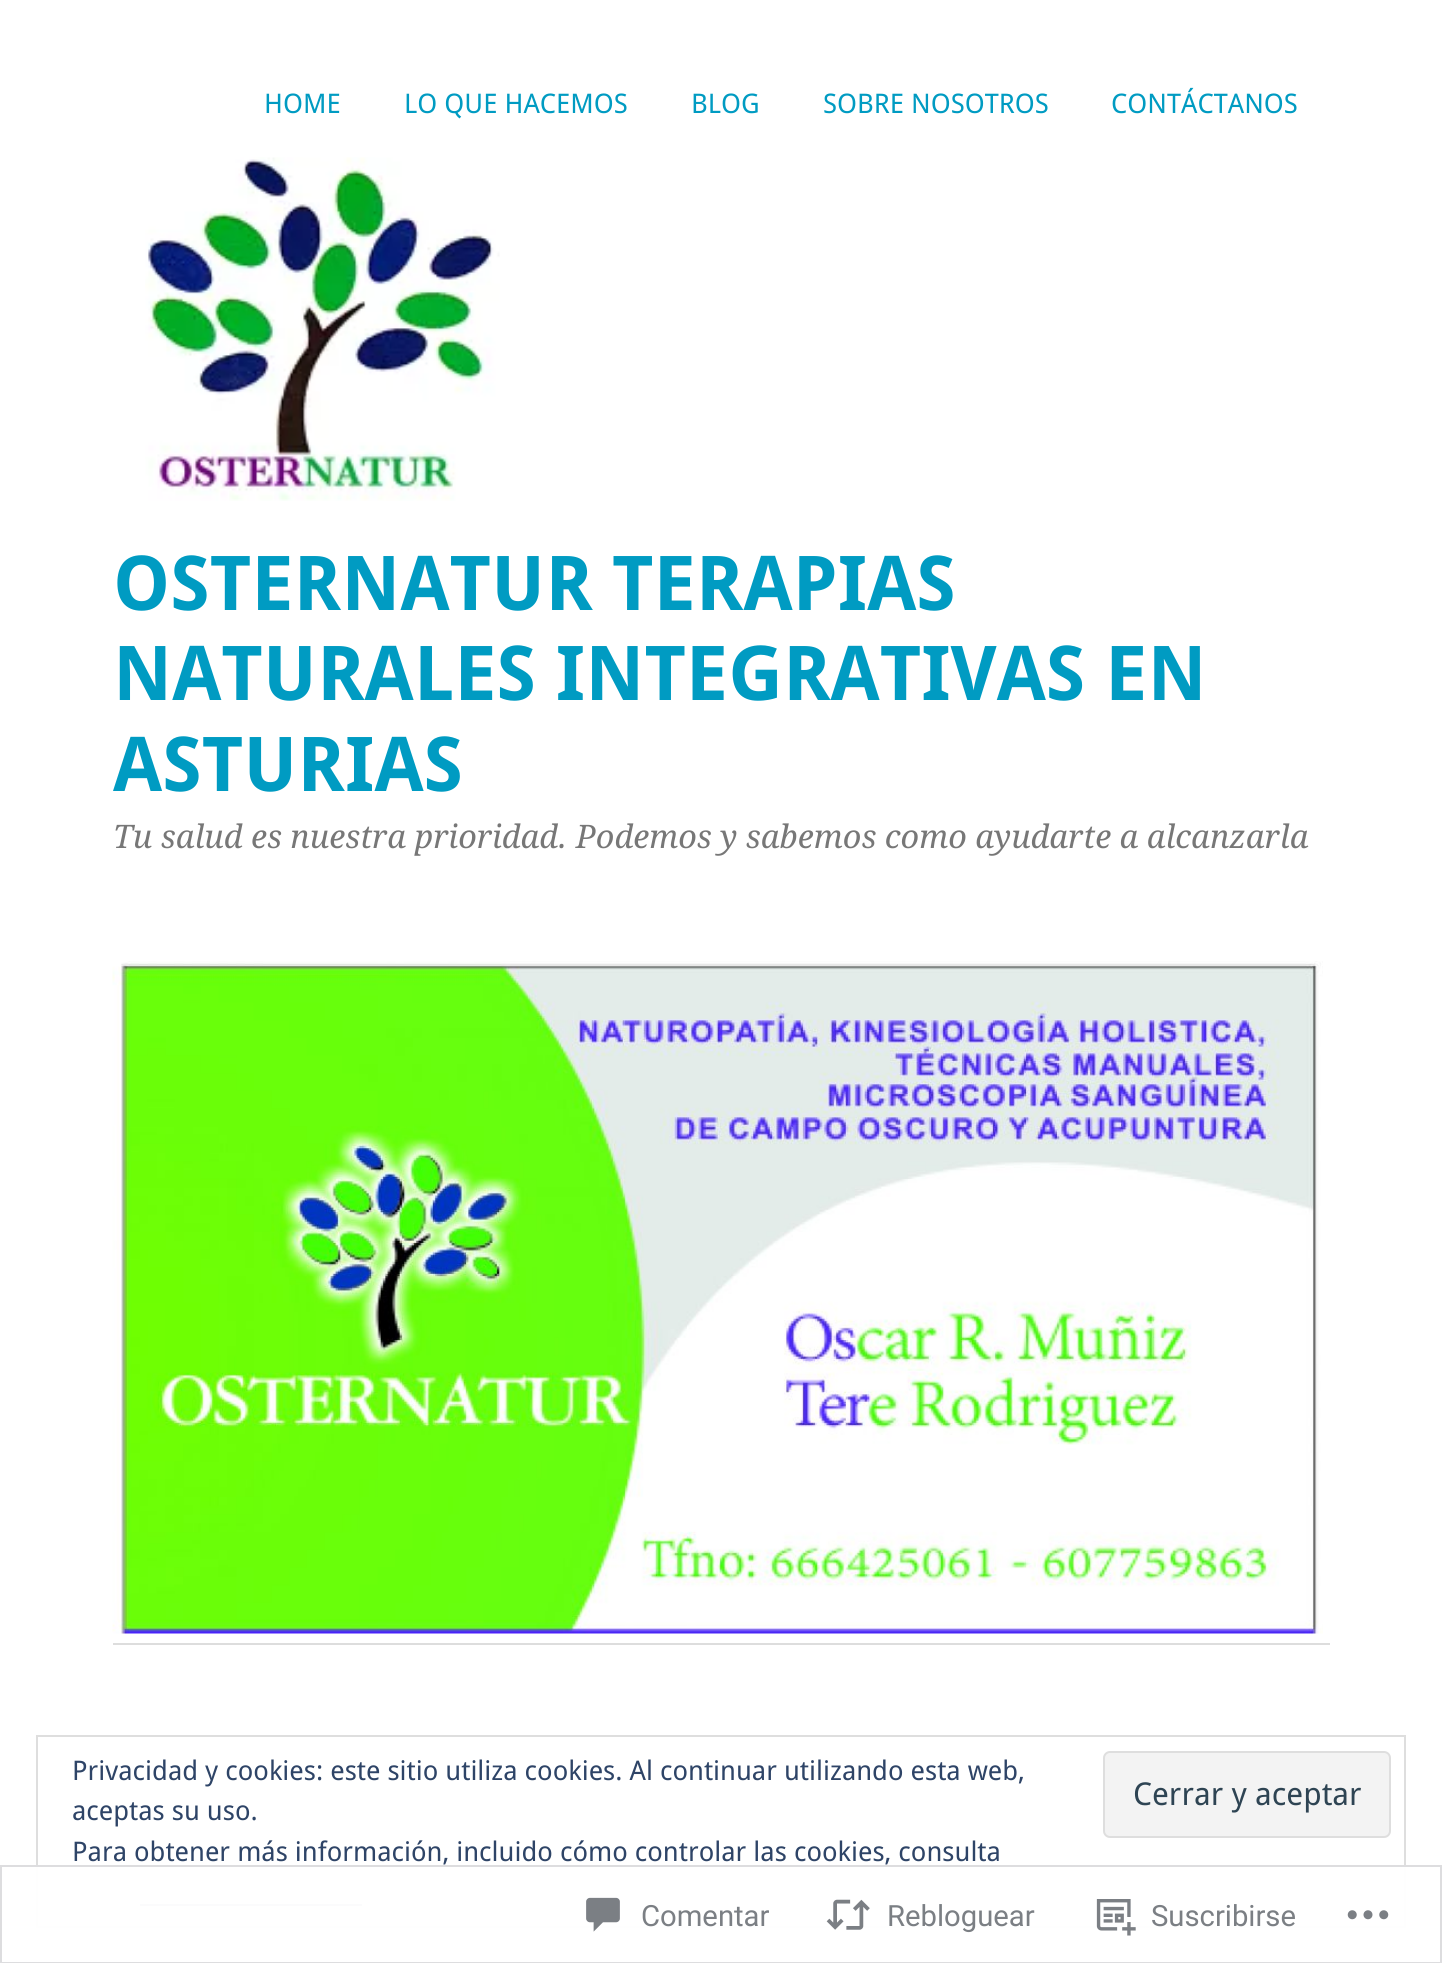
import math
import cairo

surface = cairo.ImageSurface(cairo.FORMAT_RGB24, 1442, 1963)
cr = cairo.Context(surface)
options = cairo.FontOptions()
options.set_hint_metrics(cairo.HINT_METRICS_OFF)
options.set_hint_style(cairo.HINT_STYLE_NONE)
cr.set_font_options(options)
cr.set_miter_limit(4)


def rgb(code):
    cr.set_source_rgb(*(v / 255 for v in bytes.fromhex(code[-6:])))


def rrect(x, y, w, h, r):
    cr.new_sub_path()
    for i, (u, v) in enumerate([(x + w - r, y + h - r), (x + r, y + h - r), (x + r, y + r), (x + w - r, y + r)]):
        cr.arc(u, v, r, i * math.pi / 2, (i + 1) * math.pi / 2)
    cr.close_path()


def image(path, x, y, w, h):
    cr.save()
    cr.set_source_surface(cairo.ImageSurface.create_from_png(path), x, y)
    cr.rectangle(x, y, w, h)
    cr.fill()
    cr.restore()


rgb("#ffffff")
cr.paint()
image("img/1.png", 145, 157, 355, 344)
image("img/2.png", 112, 961, 1211, 673)
rgb("#dddddd")
cr.rectangle(113, 1643, 1217, 2)
cr.fill()
cr.rectangle(37, 1736, 1368, 191)
rgb("#dedede")
cr.stroke()
rgb("#2e4467")
cr.rectangle(140, 1904, 222, 2)
cr.fill()
cr.set_source_rgba(1, 1, 1, 0.98)
cr.rectangle(36, 1867, 1370, 61)
cr.fill()
cr.rectangle(1, 1866, 1440, 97)
rgb("#dddddf")
cr.stroke()
image("img/3.png", 586, 1897, 34, 35)
image("img/4.png", 826, 1899, 44, 31)
image("img/5.png", 1096, 1899, 40, 37)
image("img/6.png", 1347, 1910, 42, 10)
rgb("#f3f3f3")
rrect(1104, 1752, 286, 85, 6)
cr.fill_preserve()
rgb("#dedede")
cr.stroke()
cr.select_font_face("Droid Sans")
cr.set_font_size(27)
rgb("#009bc2")
for x, y, s in [
    (264, 113, "HOME"),
    (404, 113, "LO QUE HACEMOS"),
    (691, 113, "BLOG"),
    (823, 113, "SOBRE NOSOTROS"),
    (1111, 113, "CONTÁCTANOS"),
]:
    cr.move_to(x, y)
    cr.show_text(s)
cr.select_font_face("Droid Sans", cairo.FONT_SLANT_NORMAL, cairo.FONT_WEIGHT_BOLD)
cr.set_font_size(75.6)
for x, y, s in [
    (113, 610, "OSTERNATUR"),
    (612, 610, "TERAPIAS"),
    (113, 700, "NATURALES INTEGRATIVAS EN"),
    (113, 791, "ASTURIAS"),
]:
    cr.move_to(x, y)
    cr.show_text(s)
cr.select_font_face("Droid Serif", cairo.FONT_SLANT_ITALIC)
cr.set_font_size(32.4)
rgb("#777777")
cr.move_to(113, 848)
cr.show_text("Tu salud es nuestra prioridad. Podemos y sabemos como ayudarte a alcanzarla")
cr.select_font_face("Roboto")
cr.set_font_size(29.25)
rgb("#7b7f84")
for x, y, s in [
    (641, 1926, "Comentar"),
    (887, 1926, "Rebloguear"),
    (1151, 1926, "Suscribirse"),
]:
    cr.move_to(x, y)
    cr.show_text(s)
cr.select_font_face("Droid Sans")
cr.set_font_size(27)
rgb("#2e4467")
cr.move_to(72, 1780)
cr.show_text("Privacidad y cookies: este sitio utiliza cookies. Al continuar utilizando esta web,")
cr.move_to(72, 1820)
cr.show_text("aceptas su uso.")
cr.set_font_size(31.5)
rgb("#2e4453")
cr.move_to(1133, 1805)
cr.show_text("Cerrar y aceptar")
cr.set_font_size(27)
rgb("#2e4467")
cr.move_to(72, 1861)
cr.show_text("Para obtener más información, incluido cómo controlar las cookies, consulta")
surface.write_to_png("page.png")
